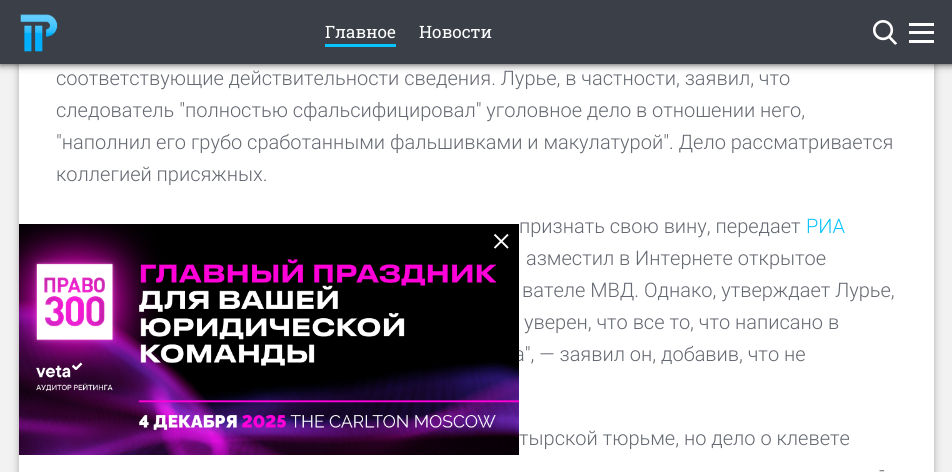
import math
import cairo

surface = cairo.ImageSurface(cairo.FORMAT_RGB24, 952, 472)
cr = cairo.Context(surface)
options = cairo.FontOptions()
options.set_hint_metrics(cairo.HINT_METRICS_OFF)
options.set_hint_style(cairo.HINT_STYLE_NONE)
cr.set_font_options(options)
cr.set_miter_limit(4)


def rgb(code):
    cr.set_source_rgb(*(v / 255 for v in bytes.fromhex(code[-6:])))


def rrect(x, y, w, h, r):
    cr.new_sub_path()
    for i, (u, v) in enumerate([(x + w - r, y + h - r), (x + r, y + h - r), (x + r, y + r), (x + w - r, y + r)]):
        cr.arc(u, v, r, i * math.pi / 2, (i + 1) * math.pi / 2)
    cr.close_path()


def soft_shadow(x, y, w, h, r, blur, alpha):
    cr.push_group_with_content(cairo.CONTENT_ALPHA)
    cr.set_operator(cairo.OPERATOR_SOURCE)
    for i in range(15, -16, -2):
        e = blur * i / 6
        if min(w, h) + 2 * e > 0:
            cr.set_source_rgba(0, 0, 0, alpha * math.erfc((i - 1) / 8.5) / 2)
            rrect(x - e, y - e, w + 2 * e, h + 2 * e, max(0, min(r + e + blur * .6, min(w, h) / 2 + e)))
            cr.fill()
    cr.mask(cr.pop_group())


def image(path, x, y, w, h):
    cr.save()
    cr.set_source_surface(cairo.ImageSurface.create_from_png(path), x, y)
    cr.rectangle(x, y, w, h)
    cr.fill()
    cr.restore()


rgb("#f2f2f2")
cr.paint()
rgb("#000000")
soft_shadow(19, -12, 915, 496, 0, 4, 0.3)
rgb("#ffffff")
cr.rectangle(19, 64, 915, 408)
cr.fill()
rgb("#000000")
soft_shadow(0, 0, 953, 64, 0, 4, 0.8)
rgb("#3b4048")
cr.rectangle(0, 0, 952, 64)
cr.fill()
image("img/1.png", 20, 14, 38, 38)
rgb("#07c3ff")
cr.rectangle(325, 44, 71, 3)
cr.fill()
image("img/2.png", 873, 20, 24, 25)
for x, y, w, h, color in [
    (909, 40, 25, 3, "#fefefe"),
    (909, 31, 25, 3, "#fefefe"),
    (909, 23, 25, 3, "#fefefe"),
]:
    rgb(color)
    cr.rectangle(x, y, w, h)
    cr.fill()
cr.select_font_face("Roboto Slab")
cr.set_font_size(17)
rgb("#ffffff")
cr.move_to(325, 38)
cr.show_text("Главное")
cr.move_to(419, 38)
cr.show_text("Новости")
cr.select_font_face("Roboto Light")
cr.set_font_size(20)
rgb("#656971")
for x, y, s in [
    (56, 85, "соответствующие действительности сведения. Лурье, в частности, заявил, что"),
    (56, 117, "следователь \"полностью сфальсифицировал\" уголовное дело в отношении него,"),
    (56, 149, "\"наполнил его грубо сработанными фальшивками и макулатурой\". Дело рассматривается"),
    (56, 181, "коллегией присяжных."),
    (519, 233, "признать свою вину, передает"),
]:
    cr.move_to(x, y)
    cr.show_text(s)
rgb("#07c3ff")
cr.move_to(806, 233)
cr.show_text("РИА")
rgb("#656971")
for x, y, s in [
    (526, 265, "азместил в Интернете открытое"),
    (522, 297, "вателе МВД. Однако, утверждает Лурье,"),
    (524, 329, "уверен, что все то, что написано в"),
    (514, 361, "а\", — заявил он, добавив, что не"),
    (519, 445, "тырской тюрьме, но дело о клевете"),
    (879, 477, "-"),
]:
    cr.move_to(x, y)
    cr.show_text(s)
image("img/3.png", 19, 224, 500, 231)
cr.new_path()
cr.move_to(494.5, 234.5)
cr.line_to(508, 248)
cr.move_to(508, 234.5)
cr.line_to(494.5, 248)
rgb("#ffffff")
cr.set_line_width(1.9)
cr.stroke()
surface.write_to_png("page.png")
